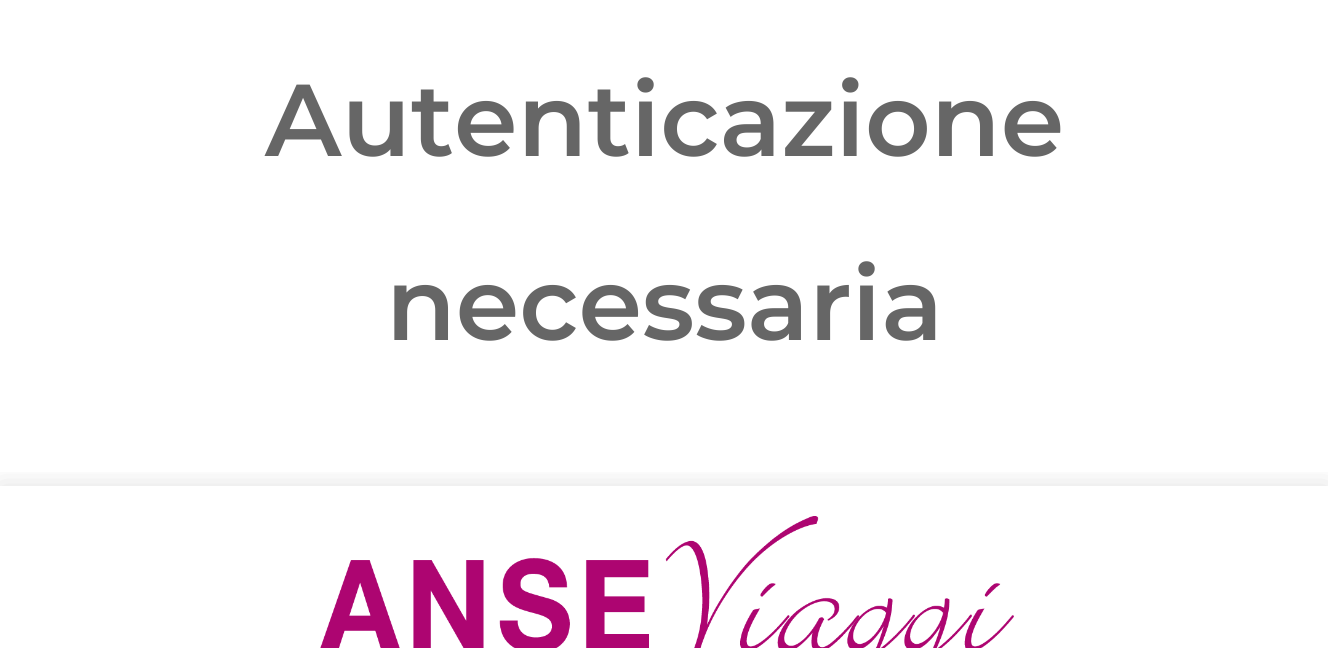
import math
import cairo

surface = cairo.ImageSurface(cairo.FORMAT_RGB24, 1328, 648)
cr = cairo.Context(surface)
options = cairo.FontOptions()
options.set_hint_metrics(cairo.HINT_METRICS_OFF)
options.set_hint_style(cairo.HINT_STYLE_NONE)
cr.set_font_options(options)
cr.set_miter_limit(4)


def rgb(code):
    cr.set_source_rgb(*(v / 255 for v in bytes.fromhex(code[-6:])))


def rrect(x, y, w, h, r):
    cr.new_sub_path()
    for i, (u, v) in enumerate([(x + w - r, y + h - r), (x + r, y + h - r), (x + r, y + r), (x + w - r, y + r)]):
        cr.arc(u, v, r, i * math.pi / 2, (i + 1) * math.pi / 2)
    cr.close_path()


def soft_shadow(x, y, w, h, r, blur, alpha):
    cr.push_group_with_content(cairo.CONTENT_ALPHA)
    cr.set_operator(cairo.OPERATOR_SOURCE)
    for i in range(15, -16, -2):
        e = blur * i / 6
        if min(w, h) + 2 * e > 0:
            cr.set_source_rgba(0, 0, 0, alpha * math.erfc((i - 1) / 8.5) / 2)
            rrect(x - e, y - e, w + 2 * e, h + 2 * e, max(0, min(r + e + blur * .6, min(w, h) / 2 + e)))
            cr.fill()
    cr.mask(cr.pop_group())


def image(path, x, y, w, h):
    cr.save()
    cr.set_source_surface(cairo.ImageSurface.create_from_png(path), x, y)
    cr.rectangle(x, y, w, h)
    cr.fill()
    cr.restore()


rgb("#ffffff")
cr.paint()
cr.save()
cr.rectangle(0, 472, 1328, 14)
cr.clip()
rgb("#000000")
soft_shadow(0, 486, 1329, 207, 0, 15, 0.12)
cr.restore()
image("img/1.png", 320, 516, 694, 132)
cr.select_font_face("Montserrat SemiBold")
cr.set_font_size(102)
rgb("#666666")
cr.move_to(265, 156)
cr.show_text("Autenticazione")
cr.move_to(386, 340)
cr.show_text("necessaria")
surface.write_to_png("page.png")
